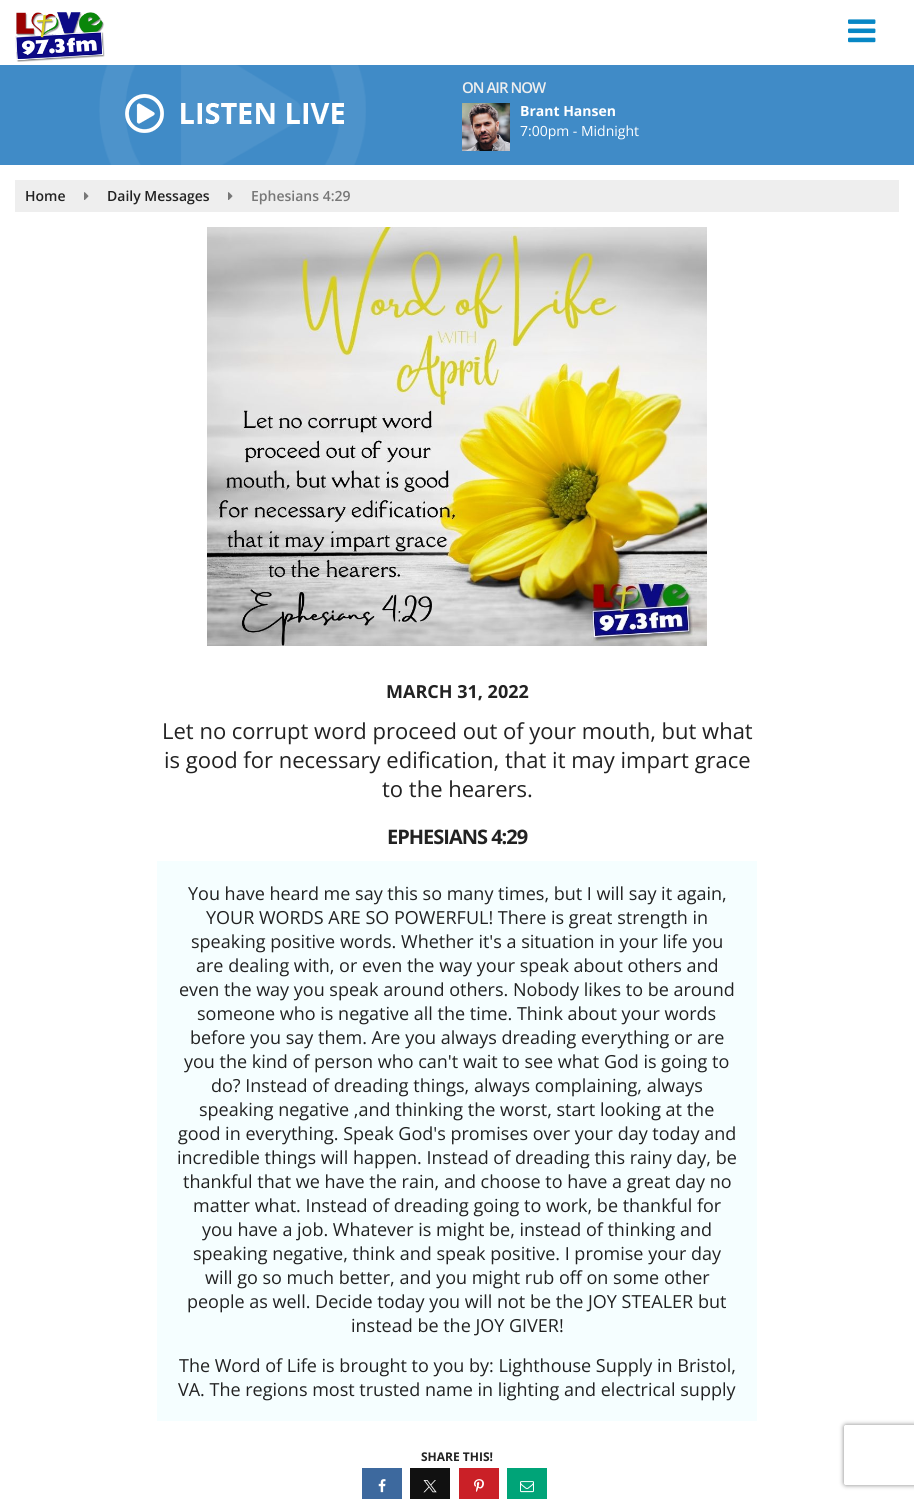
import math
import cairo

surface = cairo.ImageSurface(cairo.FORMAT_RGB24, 914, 1499)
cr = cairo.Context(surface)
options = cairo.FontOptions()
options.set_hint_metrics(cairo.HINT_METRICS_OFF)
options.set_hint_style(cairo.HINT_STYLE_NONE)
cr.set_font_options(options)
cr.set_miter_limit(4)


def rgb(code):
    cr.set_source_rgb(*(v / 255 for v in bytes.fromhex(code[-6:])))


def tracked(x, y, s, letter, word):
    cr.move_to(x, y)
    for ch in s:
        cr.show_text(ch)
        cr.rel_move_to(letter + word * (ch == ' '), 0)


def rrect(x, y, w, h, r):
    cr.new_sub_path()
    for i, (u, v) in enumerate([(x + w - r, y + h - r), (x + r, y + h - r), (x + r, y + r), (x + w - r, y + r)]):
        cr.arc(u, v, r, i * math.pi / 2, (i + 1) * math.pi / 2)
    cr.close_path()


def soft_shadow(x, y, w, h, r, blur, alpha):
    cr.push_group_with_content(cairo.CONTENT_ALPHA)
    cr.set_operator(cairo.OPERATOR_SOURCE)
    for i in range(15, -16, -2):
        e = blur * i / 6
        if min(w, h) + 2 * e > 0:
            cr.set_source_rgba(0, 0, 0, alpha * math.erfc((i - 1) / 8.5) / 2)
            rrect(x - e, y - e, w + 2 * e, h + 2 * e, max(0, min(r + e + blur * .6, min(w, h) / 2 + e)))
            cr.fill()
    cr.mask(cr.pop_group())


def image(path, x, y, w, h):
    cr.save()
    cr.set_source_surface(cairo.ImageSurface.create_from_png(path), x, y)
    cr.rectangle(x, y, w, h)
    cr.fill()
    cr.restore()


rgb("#ffffff")
cr.paint()
image("img/1.png", 15, 12, 90, 50)
image("img/2.png", 848, 19, 28, 24)
rgb("#408bc7")
cr.rectangle(0, 65, 914, 100)
cr.fill()
image("img/3.png", 99, 65, 267, 100)
image("img/4.png", 125, 94, 219, 39)
image("img/5.png", 462, 103, 48, 48)
rgb("#eeeeee")
cr.rectangle(15, 180, 884, 32)
cr.fill()
image("img/6.png", 84, 192, 5, 8)
image("img/6.png", 228, 192, 5, 8)
image("img/7.png", 207, 227, 500, 419)
rgb("#f5feff")
cr.rectangle(157, 861, 600, 560)
cr.fill()
rgb("#3d699e")
cr.rectangle(362, 1468, 40, 31)
cr.fill()
image("img/8.png", 378, 1479, 8, 14)
rgb("#111111")
cr.rectangle(410, 1468, 40, 31)
cr.fill()
image("img/9.png", 423, 1480, 14, 13)
rgb("#ca2027")
cr.rectangle(459, 1468, 40, 31)
cr.fill()
image("img/10.png", 474, 1479, 10, 13)
rgb("#00a478")
cr.rectangle(507, 1468, 40, 31)
cr.fill()
image("img/11.png", 520, 1481, 14, 12)
cr.save()
cr.set_fill_rule(cairo.FILL_RULE_EVEN_ODD)
cr.new_path()
cr.move_to(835, 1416)
cr.line_to(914, 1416)
cr.line_to(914, 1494)
cr.line_to(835, 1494)
cr.close_path()
cr.move_to(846, 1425)
cr.line_to(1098, 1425)
cr.curve_to(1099, 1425, 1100, 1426, 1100, 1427)
cr.line_to(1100, 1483)
cr.curve_to(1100, 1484, 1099, 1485, 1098, 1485)
cr.line_to(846, 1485)
cr.curve_to(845, 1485, 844, 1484, 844, 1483)
cr.line_to(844, 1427)
cr.curve_to(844, 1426, 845, 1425, 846, 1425)
cr.close_path()
cr.clip()
rgb("#808080")
soft_shadow(844, 1425, 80, 60, 2, 2.5, 1)
cr.restore()
cr.select_font_face("Open Sans SemiBold")
cr.set_font_size(15)
rgb("#eeeeee")
tracked(462, 93, "ON AIR NOW", -1, 0)
cr.select_font_face("Open Sans", cairo.FONT_SLANT_NORMAL, cairo.FONT_WEIGHT_BOLD)
cr.set_font_size(14)
rgb("#ffffff")
cr.move_to(520, 116)
cr.show_text("Brant Hansen")
cr.select_font_face("Open Sans")
cr.move_to(520, 136)
cr.show_text("7:00pm - Midnight")
cr.select_font_face("Open Sans SemiBold")
rgb("#222222")
cr.move_to(25, 201)
cr.show_text("Home")
cr.move_to(107, 201)
cr.show_text("Daily Messages")
rgb("#777777")
cr.move_to(251, 201)
cr.show_text("Ephesians 4:29")
cr.select_font_face("Open Sans", cairo.FONT_SLANT_NORMAL, cairo.FONT_WEIGHT_BOLD)
cr.set_font_size(18)
rgb("#222222")
cr.move_to(386, 698)
cr.show_text("MARCH 31, 2022")
cr.select_font_face("Open Sans")
cr.set_font_size(22)
for x, y, s in [
    (162, 739, "Let no corrupt word proceed out of your mouth, but what"),
    (164, 768, "is good for necessary edification, that it may impart grace"),
    (382, 797, "to the hearers."),
]:
    cr.move_to(x, y)
    cr.show_text(s)
cr.select_font_face("Open Sans", cairo.FONT_SLANT_NORMAL, cairo.FONT_WEIGHT_BOLD)
cr.set_font_size(20)
tracked(387, 844, "EPHESIANS 4:29", -1, 0)
cr.select_font_face("Open Sans")
cr.set_font_size(18)
for x, y, s in [
    (188, 900, "You have heard me say this so many times, but I will say it again,"),
    (206, 924, "YOUR WORDS ARE SO POWERFUL! There is great strength in"),
    (191, 948, "speaking positive words. Whether it's a situation in your life you"),
    (196, 972, "are dealing with, or even the way your speak about others and"),
    (179, 996, "even the way you speak around others. Nobody likes to be around"),
    (197, 1020, "someone who is negative all the time. Think about your words"),
    (190, 1044, "before you say them. Are you always dreading everything or are"),
    (184, 1068, "you the kind of person who can't wait to see what God is going to"),
    (211, 1092, "do? Instead of dreading things, always complaining, always"),
    (199, 1116, "speaking negative ,and thinking the worst, start looking at the"),
    (178, 1140, "good in everything. Speak God's promises over your day today and"),
    (177, 1164, "incredible things will happen. Instead of dreading this rainy day, be"),
    (183, 1188, "thankful that we have the rain, and choose to have a great day no"),
    (193, 1212, "matter what. Instead of dreading going to work, be thankful for"),
    (202, 1236, "you have a job. Whatever is might be, instead of thinking and"),
    (193, 1260, "speaking negative, think and speak positive. I promise your day"),
    (205, 1284, "will go so much better, and you might rub off on some other"),
    (187, 1308, "people as well. Decide today you will not be the JOY STEALER but"),
    (351, 1332, "instead be the JOY GIVER!"),
    (179, 1372, "The Word of Life is brought to you by: Lighthouse Supply in Bristol,"),
    (178, 1396, "VA. The regions most trusted name in lighting and electrical supply"),
]:
    cr.move_to(x, y)
    cr.show_text(s)
cr.select_font_face("Open Sans", cairo.FONT_SLANT_NORMAL, cairo.FONT_WEIGHT_BOLD)
cr.set_font_size(12)
cr.move_to(421, 1461)
cr.show_text("SHARE THIS!")
surface.write_to_png("page.png")
